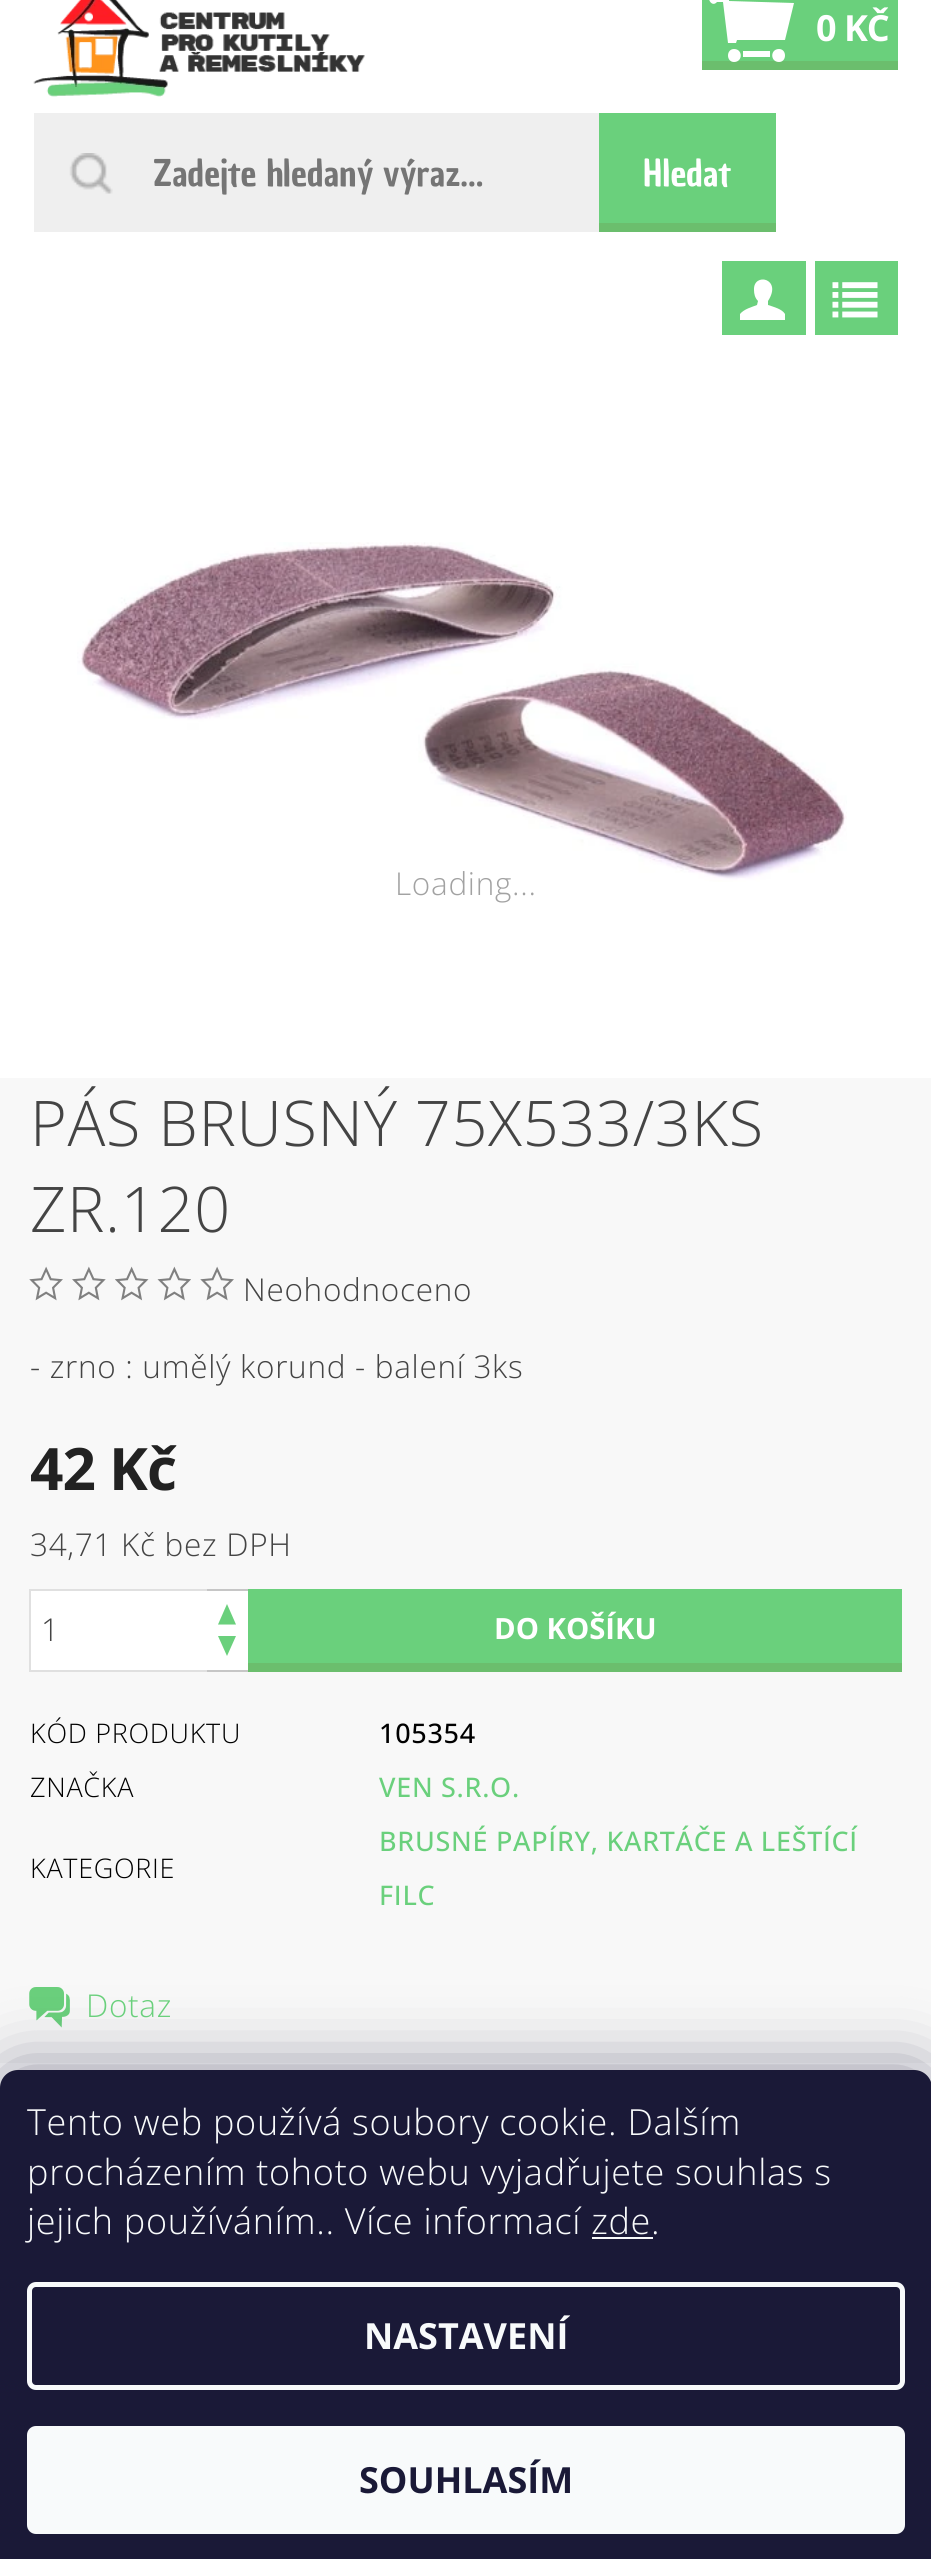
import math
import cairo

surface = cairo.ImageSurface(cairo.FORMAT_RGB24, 931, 2559)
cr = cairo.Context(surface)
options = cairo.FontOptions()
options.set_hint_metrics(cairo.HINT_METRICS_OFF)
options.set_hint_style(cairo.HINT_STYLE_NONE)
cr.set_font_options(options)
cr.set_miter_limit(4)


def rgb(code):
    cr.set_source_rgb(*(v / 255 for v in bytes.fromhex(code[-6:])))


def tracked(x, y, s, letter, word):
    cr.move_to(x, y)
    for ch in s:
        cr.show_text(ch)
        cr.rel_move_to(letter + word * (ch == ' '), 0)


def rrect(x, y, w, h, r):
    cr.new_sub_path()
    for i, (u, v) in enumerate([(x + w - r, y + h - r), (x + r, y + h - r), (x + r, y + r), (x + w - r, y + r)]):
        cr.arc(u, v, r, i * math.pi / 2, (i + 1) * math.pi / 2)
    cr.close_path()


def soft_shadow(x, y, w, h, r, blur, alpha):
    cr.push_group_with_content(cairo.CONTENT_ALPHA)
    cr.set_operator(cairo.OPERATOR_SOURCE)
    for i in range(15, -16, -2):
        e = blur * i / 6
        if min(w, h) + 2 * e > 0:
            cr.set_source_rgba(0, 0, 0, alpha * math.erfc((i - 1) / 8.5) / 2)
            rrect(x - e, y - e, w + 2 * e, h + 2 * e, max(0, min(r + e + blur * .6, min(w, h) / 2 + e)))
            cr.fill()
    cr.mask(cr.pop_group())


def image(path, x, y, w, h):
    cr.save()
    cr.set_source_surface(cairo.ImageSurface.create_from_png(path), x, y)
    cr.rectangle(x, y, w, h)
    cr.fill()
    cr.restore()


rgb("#ffffff")
cr.paint()
image("img/1.png", 33, 0, 332, 97)
rgb("#6ad07c")
cr.rectangle(702, 0, 196, 61)
cr.fill()
rgb("#6bbe6d")
cr.rectangle(702, 61, 196, 9)
cr.fill()
rgb("#ffffff")
cr.new_path()
cr.move_to(770, 57)
cr.line_to(743, 57)
cr.line_to(743, 51)
cr.line_to(770, 51)
cr.close_path()
cr.move_to(779, 49)
cr.curve_to(787, 49, 787, 62, 779, 62)
cr.curve_to(770, 62, 770, 49, 779, 49)
cr.close_path()
cr.move_to(734, 49)
cr.curve_to(743, 49, 743, 62, 734, 62)
cr.curve_to(726, 62, 726, 49, 734, 49)
cr.close_path()
cr.move_to(714, -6)
cr.curve_to(716, -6, 718, -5, 719, -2)
cr.line_to(729, -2)
cr.line_to(729, 1)
cr.line_to(794, 3)
cr.line_to(785, 40)
cr.line_to(737, 40)
cr.line_to(736, 43)
cr.line_to(728, 43)
cr.line_to(723, 2)
cr.line_to(717, 2)
cr.curve_to(711, 9, 704, -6, 714, -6)
cr.close_path()
cr.fill()
rgb("#efefef")
cr.rectangle(34, 113, 565, 119)
cr.fill()
image("img/2.png", 69, 153, 44, 41)
for x, y, w, h, color in [
    (599, 113, 177, 110, "#6ad07c"),
    (599, 223, 177, 9, "#6bbe6d"),
    (722, 261, 84, 74, "#6ad07c"),
]:
    rgb(color)
    cr.rectangle(x, y, w, h)
    cr.fill()
rgb("#ffffff")
cr.new_path()
cr.move_to(768, 305)
cr.line_to(768, 301)
cr.curve_to(783, 278, 753, 272, 754, 290)
cr.curve_to(754, 294, 755, 298, 758, 301)
cr.line_to(757, 305)
cr.curve_to(752, 307, 744, 309, 740, 314)
cr.line_to(740, 320)
cr.line_to(785, 320)
cr.line_to(785, 314)
cr.curve_to(782, 309, 774, 307, 768, 305)
cr.close_path()
cr.fill()
rgb("#6ad07c")
cr.rectangle(815, 261, 83, 74)
cr.fill()
image("img/3.png", 832, 282, 46, 36)
image("img/4.png", 77, 542, 770, 340)
rgb("#f8f8f8")
cr.rectangle(0, 1078, 931, 985)
cr.fill()
image("img/5.png", 29, 1266, 34, 35)
image("img/6.png", 72, 1266, 34, 35)
image("img/7.png", 115, 1266, 34, 35)
image("img/8.png", 157, 1266, 34, 35)
image("img/5.png", 200, 1266, 34, 35)
rgb("#ffffff")
cr.rectangle(31, 1591, 176, 79)
cr.fill()
cr.rectangle(30, 1590, 187, 81)
rgb("#e0e0e0")
cr.stroke()
rgb("#ffffff")
cr.rectangle(207, 1591, 41, 79)
cr.fill()
rgb("#c6c6c6")
cr.rectangle(207, 1589, 41, 2)
cr.fill()
rgb("#6ad07c")
cr.new_path()
cr.move_to(236, 1624.5)
cr.line_to(218, 1624.5)
cr.line_to(227, 1604)
cr.close_path()
cr.fill()
rgb("#c6c6c6")
cr.rectangle(207, 1670, 41, 2)
cr.fill()
rgb("#6ad07c")
cr.new_path()
cr.move_to(218, 1636)
cr.line_to(236, 1636)
cr.line_to(227, 1656)
cr.close_path()
cr.fill()
cr.rectangle(248, 1589, 654, 74)
cr.fill()
rgb("#6bbe6d")
cr.rectangle(248, 1663, 654, 9)
cr.fill()
image("img/9.png", 29, 1987, 41, 41)
rgb("#1b1939")
soft_shadow(0, 2070, 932, 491, 18, 34, 0.5)
rgb("#1a1937")
cr.new_path()
cr.move_to(18, 2070)
cr.line_to(914, 2070)
cr.curve_to(924, 2070, 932, 2078, 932, 2088)
cr.line_to(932, 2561)
cr.line_to(0, 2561)
cr.line_to(0, 2088)
cr.curve_to(0, 2078, 8, 2070, 18, 2070)
cr.close_path()
cr.fill()
rgb("#f8fafb")
cr.rectangle(592, 2237, 61, 2)
cr.fill()
rrect(29.5, 2284.5, 873, 103, 6.5)
cr.set_line_width(5)
cr.stroke()
rrect(27, 2426, 878, 108, 9)
cr.fill()
cr.select_font_face("Open Sans", cairo.FONT_SLANT_NORMAL, cairo.FONT_WEIGHT_BOLD)
cr.set_font_size(36)
rgb("#ffffff")
tracked(816, 41, "0 KČ", -1, 0)
cr.select_font_face("Chau Philomene One")
rgb("#757575")
cr.move_to(153, 186)
cr.show_text("Zadejte hledaný výraz...")
rgb("#ffffff")
cr.move_to(643, 186)
cr.show_text("Hledat")
cr.select_font_face("Open Sans Light")
cr.set_font_size(31.5)
rgb("#a2a2a2")
tracked(395, 895, "Loading...", 0.7, 0)
cr.set_font_size(63)
rgb("#444444")
tracked(30, 1146, "PÁS BRUSNÝ 75X533/3KS", 0.7, 0)
tracked(30, 1232, "ZR.120", 0.7, 0)
cr.set_font_size(31.5)
tracked(243, 1301, "Neohodnoceno", 0.7, 0)
tracked(30, 1378, "- zrno : umělý korund - balení 3ks", 0.7, 0)
cr.select_font_face("Open Sans", cairo.FONT_SLANT_NORMAL, cairo.FONT_WEIGHT_BOLD)
cr.set_font_size(58.5)
rgb("#222222")
tracked(30, 1490, "42 Kč", -1, 0)
cr.select_font_face("Open Sans Light")
cr.set_font_size(31.5)
rgb("#444444")
tracked(30, 1556, "34,71 Kč bez DPH", 0.7, 0)
cr.move_to(41, 1641)
cr.show_text("1")
cr.select_font_face("Open Sans", cairo.FONT_SLANT_NORMAL, cairo.FONT_WEIGHT_BOLD)
cr.set_font_size(29.25)
rgb("#ffffff")
cr.move_to(494, 1639)
cr.show_text("DO KOŠÍKU")
cr.select_font_face("Open Sans Light")
cr.set_font_size(27)
rgb("#000000")
tracked(30, 1743, "KÓD PRODUKTU", 0.7, 0)
cr.select_font_face("Open Sans Medium")
tracked(379, 1743, "105354", 0.7, 0)
cr.select_font_face("Open Sans Light")
tracked(30, 1797, "ZNAČKA", 0.7, 0)
cr.select_font_face("Open Sans Medium")
rgb("#6ad07c")
tracked(379, 1797, "VEN S.R.O.", 0.7, 0)
cr.select_font_face("Open Sans Light")
rgb("#000000")
tracked(30, 1878, "KATEGORIE", 0.7, 0)
cr.select_font_face("Open Sans Medium")
rgb("#6ad07c")
tracked(379, 1851, "BRUSNÉ PAPÍRY, KARTÁČE A LEŠTÍCÍ", 0.7, 0)
tracked(379, 1905, "FILC", 0.7, 0)
cr.select_font_face("Open Sans Light")
cr.set_font_size(31.5)
tracked(86, 2017, "Dotaz", 0.7, 0)
cr.set_font_size(36)
rgb("#f8fafb")
for x, y, s in [
    (27, 2135, "Tento web používá soubory cookie. Dalším"),
    (27, 2185, "procházením tohoto webu vyjadřujete souhlas s"),
    (27, 2234, "jejich používáním.. Více informací zde."),
]:
    tracked(x, y, s, 0.7, 0)
cr.select_font_face("Open Sans", cairo.FONT_SLANT_NORMAL, cairo.FONT_WEIGHT_BOLD)
cr.move_to(364, 2349)
cr.show_text("NASTAVENÍ")
rgb("#1a1937")
cr.move_to(359, 2493)
cr.show_text("SOUHLASÍM")
surface.write_to_png("page.png")
